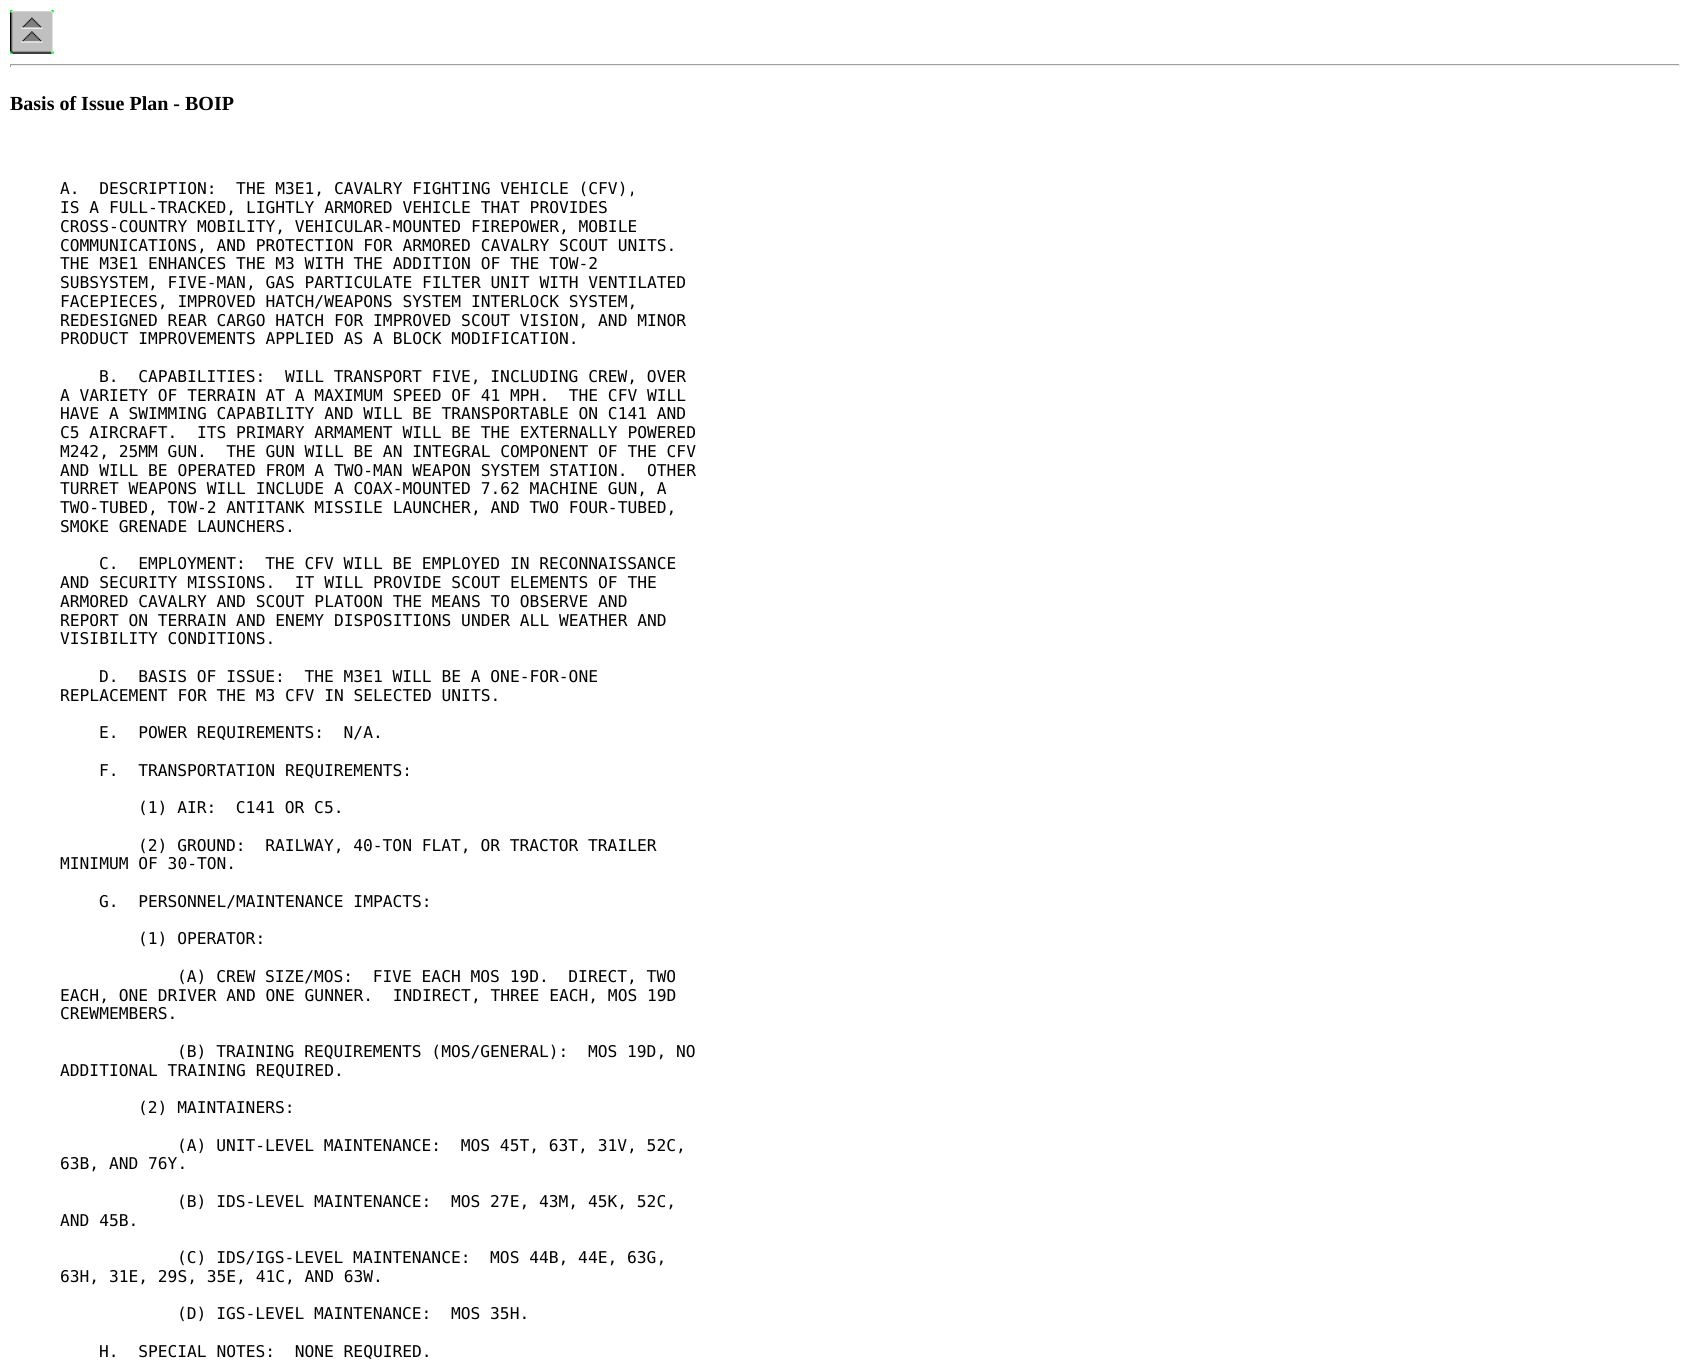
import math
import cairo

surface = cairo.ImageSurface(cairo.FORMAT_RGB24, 1690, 1370)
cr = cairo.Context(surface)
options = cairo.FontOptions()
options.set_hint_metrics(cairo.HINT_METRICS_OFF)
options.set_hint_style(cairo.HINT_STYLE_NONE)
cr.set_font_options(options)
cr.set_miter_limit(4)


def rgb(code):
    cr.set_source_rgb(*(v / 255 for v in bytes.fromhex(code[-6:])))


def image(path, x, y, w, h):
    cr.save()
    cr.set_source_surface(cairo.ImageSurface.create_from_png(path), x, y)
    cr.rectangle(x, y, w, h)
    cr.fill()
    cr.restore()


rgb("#ffffff")
cr.paint()
image("img/1.png", 10, 10, 44, 44)
for x, y, w, h, color in [
    (10, 64, 1670, 1, "#9f9f9f"),
    (1679, 64, 1, 3, "#eeeeee"),
    (10, 65, 1670, 1, "#eeeeee"),
    (10, 64, 1, 3, "#9f9f9f"),
]:
    rgb(color)
    cr.rectangle(x, y, w, h)
    cr.fill()
cr.select_font_face("Liberation Serif", cairo.FONT_SLANT_NORMAL, cairo.FONT_WEIGHT_BOLD)
cr.set_font_size(20)
rgb("#000000")
cr.move_to(10, 110)
cr.show_text("Basis of Issue Plan - BOIP")
cr.select_font_face("DejaVu Sans Mono")
cr.set_font_size(16.25)
for x, y, s in [
    (60, 194, "A.  DESCRIPTION:  THE M3E1, CAVALRY FIGHTING VEHICLE (CFV),"),
    (60, 213, "IS A FULL-TRACKED, LIGHTLY ARMORED VEHICLE THAT PROVIDES"),
    (60, 232, "CROSS-COUNTRY MOBILITY, VEHICULAR-MOUNTED FIREPOWER, MOBILE"),
    (60, 251, "COMMUNICATIONS, AND PROTECTION FOR ARMORED CAVALRY SCOUT UNITS."),
    (60, 269, "THE M3E1 ENHANCES THE M3 WITH THE ADDITION OF THE TOW-2"),
    (60, 288, "SUBSYSTEM, FIVE-MAN, GAS PARTICULATE FILTER UNIT WITH VENTILATED"),
    (60, 307, "FACEPIECES, IMPROVED HATCH/WEAPONS SYSTEM INTERLOCK SYSTEM,"),
    (60, 326, "REDESIGNED REAR CARGO HATCH FOR IMPROVED SCOUT VISION, AND MINOR"),
    (60, 344, "PRODUCT IMPROVEMENTS APPLIED AS A BLOCK MODIFICATION."),
    (99, 382, "B.  CAPABILITIES:  WILL TRANSPORT FIVE, INCLUDING CREW, OVER"),
    (60, 401, "A VARIETY OF TERRAIN AT A MAXIMUM SPEED OF 41 MPH.  THE CFV WILL"),
    (60, 419, "HAVE A SWIMMING CAPABILITY AND WILL BE TRANSPORTABLE ON C141 AND"),
    (60, 438, "C5 AIRCRAFT.  ITS PRIMARY ARMAMENT WILL BE THE EXTERNALLY POWERED"),
    (60, 457, "M242, 25MM GUN.  THE GUN WILL BE AN INTEGRAL COMPONENT OF THE CFV"),
    (60, 476, "AND WILL BE OPERATED FROM A TWO-MAN WEAPON SYSTEM STATION.  OTHER"),
    (60, 494, "TURRET WEAPONS WILL INCLUDE A COAX-MOUNTED 7.62 MACHINE GUN, A"),
    (60, 513, "TWO-TUBED, TOW-2 ANTITANK MISSILE LAUNCHER, AND TWO FOUR-TUBED,"),
    (60, 532, "SMOKE GRENADE LAUNCHERS."),
    (99, 569, "C.  EMPLOYMENT:  THE CFV WILL BE EMPLOYED IN RECONNAISSANCE"),
    (60, 588, "AND SECURITY MISSIONS.  IT WILL PROVIDE SCOUT ELEMENTS OF THE"),
    (60, 607, "ARMORED CAVALRY AND SCOUT PLATOON THE MEANS TO OBSERVE AND"),
    (60, 626, "REPORT ON TERRAIN AND ENEMY DISPOSITIONS UNDER ALL WEATHER AND"),
    (60, 644, "VISIBILITY CONDITIONS."),
    (99, 682, "D.  BASIS OF ISSUE:  THE M3E1 WILL BE A ONE-FOR-ONE"),
    (60, 701, "REPLACEMENT FOR THE M3 CFV IN SELECTED UNITS."),
    (99, 738, "E.  POWER REQUIREMENTS:  N/A."),
    (99, 776, "F.  TRANSPORTATION REQUIREMENTS:"),
    (138, 813, "(1) AIR:  C141 OR C5."),
    (138, 851, "(2) GROUND:  RAILWAY, 40-TON FLAT, OR TRACTOR TRAILER"),
    (60, 869, "MINIMUM OF 30-TON."),
    (99, 907, "G.  PERSONNEL/MAINTENANCE IMPACTS:"),
    (138, 944, "(1) OPERATOR:"),
    (177, 982, "(A) CREW SIZE/MOS:  FIVE EACH MOS 19D.  DIRECT, TWO"),
    (60, 1001, "EACH, ONE DRIVER AND ONE GUNNER.  INDIRECT, THREE EACH, MOS 19D"),
    (60, 1019, "CREWMEMBERS."),
    (177, 1057, "(B) TRAINING REQUIREMENTS (MOS/GENERAL):  MOS 19D, NO"),
    (60, 1076, "ADDITIONAL TRAINING REQUIRED."),
    (138, 1113, "(2) MAINTAINERS:"),
    (177, 1151, "(A) UNIT-LEVEL MAINTENANCE:  MOS 45T, 63T, 31V, 52C,"),
    (60, 1169, "63B, AND 76Y."),
    (177, 1207, "(B) IDS-LEVEL MAINTENANCE:  MOS 27E, 43M, 45K, 52C,"),
    (60, 1226, "AND 45B."),
    (177, 1263, "(C) IDS/IGS-LEVEL MAINTENANCE:  MOS 44B, 44E, 63G,"),
    (60, 1282, "63H, 31E, 29S, 35E, 41C, AND 63W."),
    (177, 1319, "(D) IGS-LEVEL MAINTENANCE:  MOS 35H."),
    (99, 1357, "H.  SPECIAL NOTES:  NONE REQUIRED."),
]:
    cr.move_to(x, y)
    cr.show_text(s)
surface.write_to_png("page.png")
